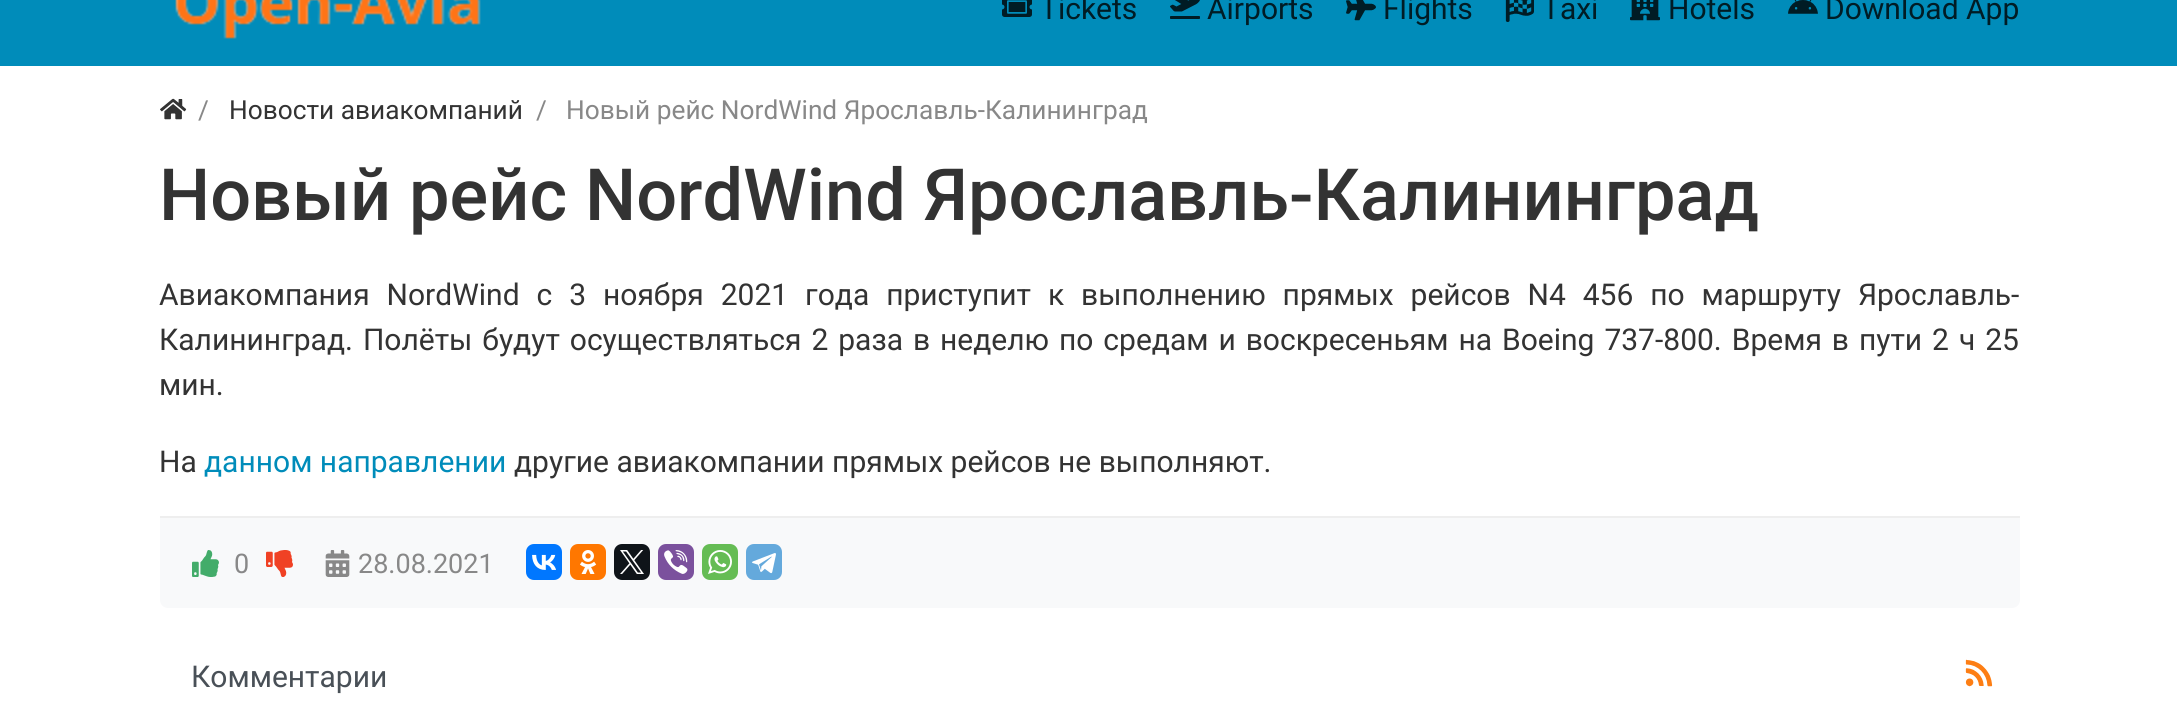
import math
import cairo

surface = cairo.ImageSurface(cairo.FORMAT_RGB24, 2177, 707)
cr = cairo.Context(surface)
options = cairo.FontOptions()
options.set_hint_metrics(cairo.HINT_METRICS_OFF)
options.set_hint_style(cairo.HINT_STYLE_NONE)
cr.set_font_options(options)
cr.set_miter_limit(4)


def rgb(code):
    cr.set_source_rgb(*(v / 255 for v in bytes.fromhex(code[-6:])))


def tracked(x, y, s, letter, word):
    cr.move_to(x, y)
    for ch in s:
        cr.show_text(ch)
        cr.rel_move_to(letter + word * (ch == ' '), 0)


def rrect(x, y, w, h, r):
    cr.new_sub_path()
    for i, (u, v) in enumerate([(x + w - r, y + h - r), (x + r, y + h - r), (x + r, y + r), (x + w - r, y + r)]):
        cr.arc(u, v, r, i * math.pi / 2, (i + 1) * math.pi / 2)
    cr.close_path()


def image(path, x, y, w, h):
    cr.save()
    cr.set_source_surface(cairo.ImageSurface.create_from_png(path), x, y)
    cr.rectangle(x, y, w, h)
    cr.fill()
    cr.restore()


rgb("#ffffff")
cr.paint()
rgb("#008cba")
cr.rectangle(0, 0, 2177, 66)
cr.fill()
image("img/1.png", 175, 0, 306, 39)
image("img/2.png", 1002, 0, 30, 17)
image("img/3.png", 1170, 0, 30, 19)
image("img/4.png", 1346, 0, 30, 21)
image("img/5.png", 1505, 0, 29, 22)
image("img/6.png", 1630, 0, 30, 21)
image("img/7.png", 1788, 0, 30, 14)
image("img/8.png", 160, 98, 27, 22)
rgb("#f8f9fa")
cr.new_path()
cr.move_to(160, 516)
cr.line_to(2020, 516)
cr.line_to(2020, 600)
cr.curve_to(2020, 604.5, 2016.5, 608, 2012, 608)
cr.line_to(168, 608)
cr.curve_to(163.5, 608, 160, 604.5, 160, 600)
cr.close_path()
cr.fill()
rgb("#eeeeee")
cr.rectangle(160, 516, 1860, 2)
cr.fill()
image("img/9.png", 192, 550, 27, 27)
image("img/10.png", 266, 550, 27, 27)
image("img/11.png", 325, 550, 25, 27)
rgb("#0077ff")
rrect(526, 544, 36, 36, 8)
cr.fill()
image("img/12.png", 532, 554, 24, 16)
rgb("#ff7700")
rrect(570, 544, 36, 36, 8)
cr.fill()
image("img/13.png", 580, 550, 17, 24)
rgb("#0f1419")
rrect(614, 544, 36, 36, 8)
cr.fill()
image("img/14.png", 620, 550, 24, 24)
rgb("#7b519d")
rrect(658, 544, 36, 36, 8)
cr.fill()
image("img/15.png", 664, 550, 24, 24)
rgb("#65bc54")
rrect(702, 544, 36, 36, 8)
cr.fill()
image("img/16.png", 708, 550, 24, 24)
rgb("#64a9dc")
rrect(746, 544, 36, 36, 8)
cr.fill()
image("img/17.png", 752, 553, 24, 21)
image("img/18.png", 1965, 659, 28, 28)
cr.select_font_face("Roboto")
cr.set_font_size(30)
rgb("#001c25")
for x, y, s in [
    (1040, 19, "Tickets"),
    (1207, 19, "Airports"),
    (1383, 19, "Flights"),
    (1542, 19, "Taxi"),
    (1668, 19, "Hotels"),
    (1825, 19, "Download App"),
]:
    cr.move_to(x, y)
    cr.show_text(s)
cr.set_font_size(26.25)
rgb("#888888")
cr.move_to(198, 119)
cr.show_text("/")
rgb("#333333")
cr.move_to(229, 119)
cr.show_text("Новости авиакомпаний")
rgb("#888888")
cr.move_to(536, 119)
cr.show_text("/")
cr.move_to(566, 119)
cr.show_text("Новый рейс NordWind Ярославль-Калининград")
cr.select_font_face("Roboto Medium")
cr.set_font_size(72.1)
rgb("#333333")
cr.move_to(159, 220)
cr.show_text("Новый рейс NordWind Ярославль-Калининград")
cr.select_font_face("Roboto")
cr.set_font_size(30)
tracked(159, 305, "Авиакомпания NordWind с 3 ноября 2021 года приступит к выполнению прямых рейсов N4 456 по маршруту Ярославль-", 0, 9.5)
tracked(159, 350, "Калининград. Полёты будут осуществляться 2 раза в неделю по средам и воскресеньям на Boeing 737-800. Время в пути 2 ч 25", 0, 2.5)
cr.move_to(159, 395)
cr.show_text("мин.")
cr.move_to(159, 472)
cr.show_text("На")
rgb("#008cba")
cr.move_to(204, 472)
cr.show_text("данном направлении")
rgb("#333333")
cr.move_to(514, 472)
cr.show_text("другие авиакомпании прямых рейсов не выполняют.")
cr.set_font_size(27)
rgb("#888888")
cr.move_to(234, 573)
cr.show_text("0")
cr.move_to(358, 573)
cr.show_text("28.08.2021")
cr.set_font_size(30)
rgb("#495057")
cr.move_to(191, 687)
cr.show_text("Комментарии")
surface.write_to_png("page.png")
